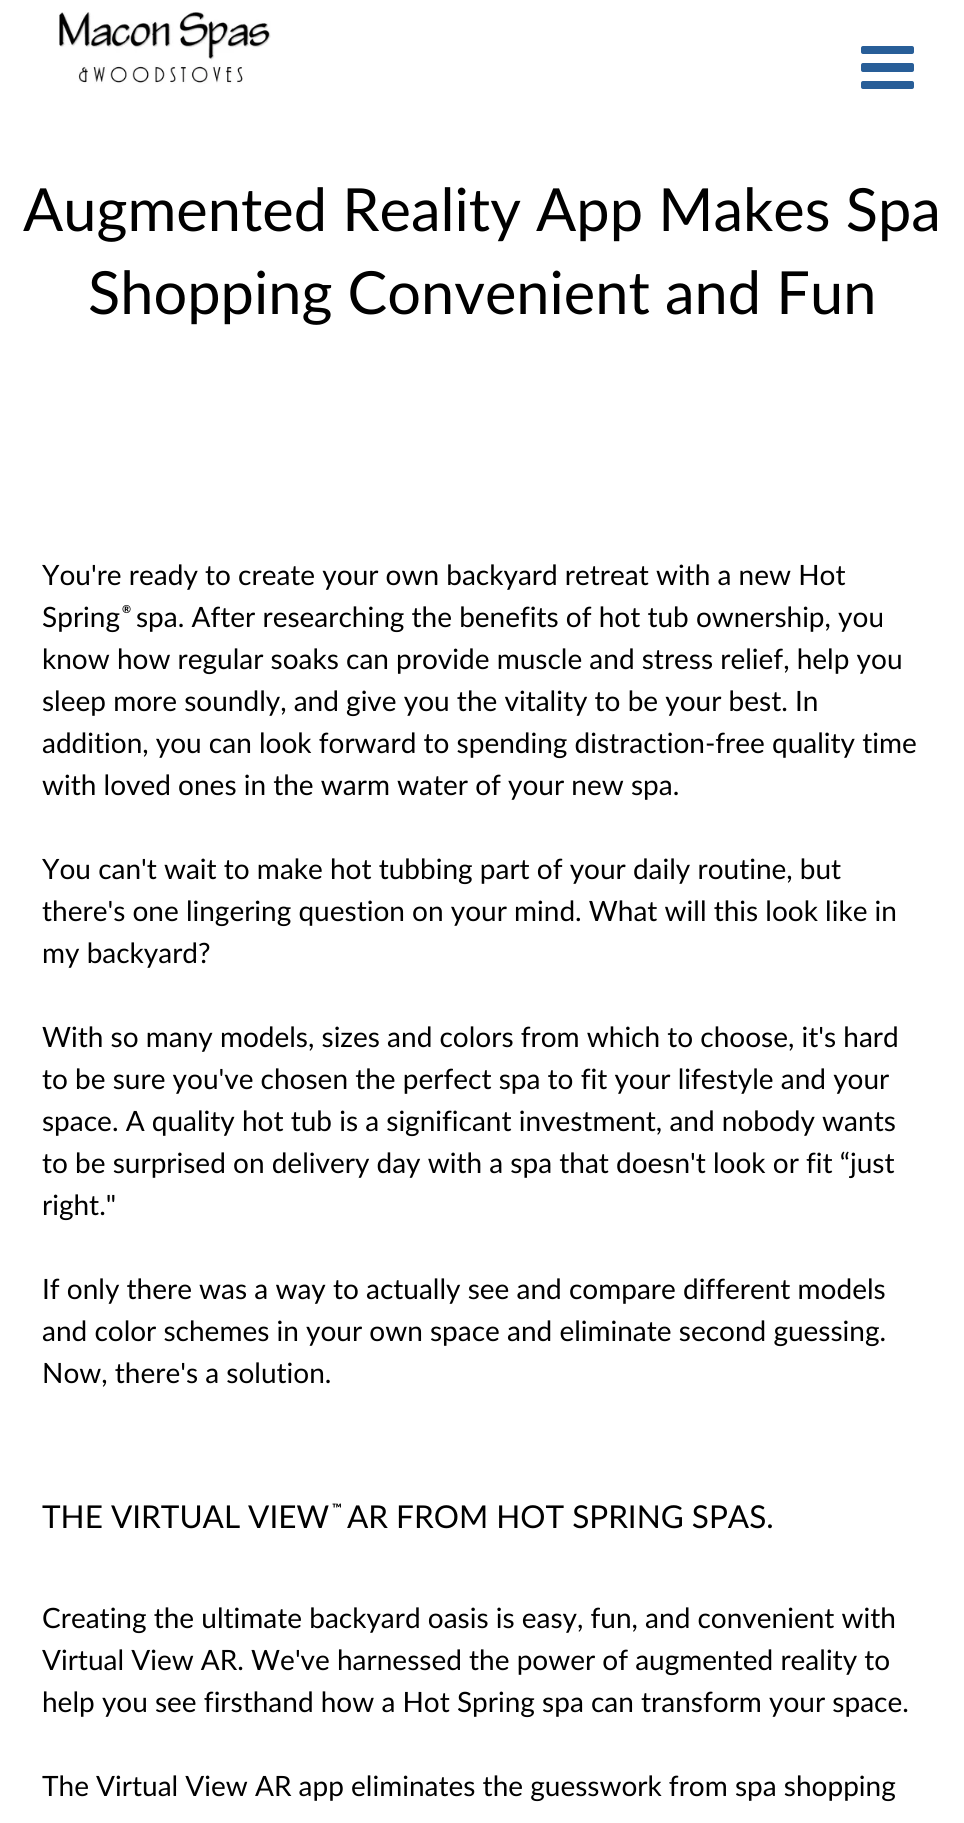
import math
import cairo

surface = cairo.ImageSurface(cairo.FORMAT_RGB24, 964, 1823)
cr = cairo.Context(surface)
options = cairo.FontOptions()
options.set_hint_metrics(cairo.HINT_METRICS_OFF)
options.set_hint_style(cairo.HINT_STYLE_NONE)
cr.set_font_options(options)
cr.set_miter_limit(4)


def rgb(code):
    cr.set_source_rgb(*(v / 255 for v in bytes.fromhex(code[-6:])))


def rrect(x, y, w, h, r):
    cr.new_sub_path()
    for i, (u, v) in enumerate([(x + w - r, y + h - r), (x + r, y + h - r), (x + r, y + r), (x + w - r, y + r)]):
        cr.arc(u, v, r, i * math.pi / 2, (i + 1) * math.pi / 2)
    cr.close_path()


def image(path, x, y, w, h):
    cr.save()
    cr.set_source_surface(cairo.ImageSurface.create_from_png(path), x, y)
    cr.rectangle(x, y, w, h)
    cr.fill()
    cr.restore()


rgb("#ffffff")
cr.paint()
image("img/1.png", 59, 12, 212, 72)
rgb("#285e98")
rrect(861, 63, 53, 9, 2)
cr.fill()
rrect(861, 46, 53, 8, 2)
cr.fill()
rrect(861, 81, 53, 8, 2)
cr.fill()
cr.select_font_face("Lato")
cr.set_font_size(59.5)
rgb("#000000")
cr.move_to(23, 231)
cr.show_text("Augmented Reality App Makes Spa")
cr.move_to(88, 314)
cr.show_text("Shopping Convenient and Fun")
cr.set_font_size(28)
cr.move_to(42, 585)
cr.show_text("You're ready to create your own backyard retreat with a new Hot")
cr.move_to(42, 627)
cr.show_text("Spring")
cr.select_font_face("Lato", cairo.FONT_SLANT_NORMAL, cairo.FONT_WEIGHT_BOLD)
cr.set_font_size(11)
cr.move_to(122, 613)
cr.show_text("®")
cr.select_font_face("Lato")
cr.set_font_size(28)
for x, y, s in [
    (136, 627, "spa. After researching the benefits of hot tub ownership, you"),
    (42, 669, "know how regular soaks can provide muscle and stress relief, help you"),
    (42, 711, "sleep more soundly, and give you the vitality to be your best. In"),
    (42, 753, "addition, you can look forward to spending distraction-free quality time"),
    (42, 795, "with loved ones in the warm water of your new spa."),
    (42, 879, "You can't wait to make hot tubbing part of your daily routine, but"),
    (42, 921, "there's one lingering question on your mind. What will this look like in"),
    (42, 963, "my backyard?"),
    (42, 1047, "With so many models, sizes and colors from which to choose, it's hard"),
    (42, 1089, "to be sure you've chosen the perfect spa to fit your lifestyle and your"),
    (42, 1131, "space. A quality hot tub is a significant investment, and nobody wants"),
    (42, 1173, "to be surprised on delivery day with a spa that doesn't look or fit “just"),
    (42, 1215, "right.\""),
    (42, 1299, "If only there was a way to actually see and compare different models"),
    (42, 1341, "and color schemes in your own space and eliminate second guessing."),
    (42, 1383, "Now, there's a solution."),
]:
    cr.move_to(x, y)
    cr.show_text(s)
cr.set_font_size(31.5)
cr.move_to(42, 1528)
cr.show_text("THE VIRTUAL VIEW")
cr.select_font_face("Lato", cairo.FONT_SLANT_NORMAL, cairo.FONT_WEIGHT_BOLD)
cr.set_font_size(13)
cr.move_to(332, 1513)
cr.show_text("™")
cr.select_font_face("Lato")
cr.set_font_size(31.5)
cr.move_to(347, 1528)
cr.show_text("AR FROM HOT SPRING SPAS.")
cr.set_font_size(28)
for x, y, s in [
    (42, 1628, "Creating the ultimate backyard oasis is easy, fun, and convenient with"),
    (42, 1670, "Virtual View AR. We've harnessed the power of augmented reality to"),
    (42, 1712, "help you see firsthand how a Hot Spring spa can transform your space."),
    (42, 1796, "The Virtual View AR app eliminates the guesswork from spa shopping"),
]:
    cr.move_to(x, y)
    cr.show_text(s)
surface.write_to_png("page.png")
